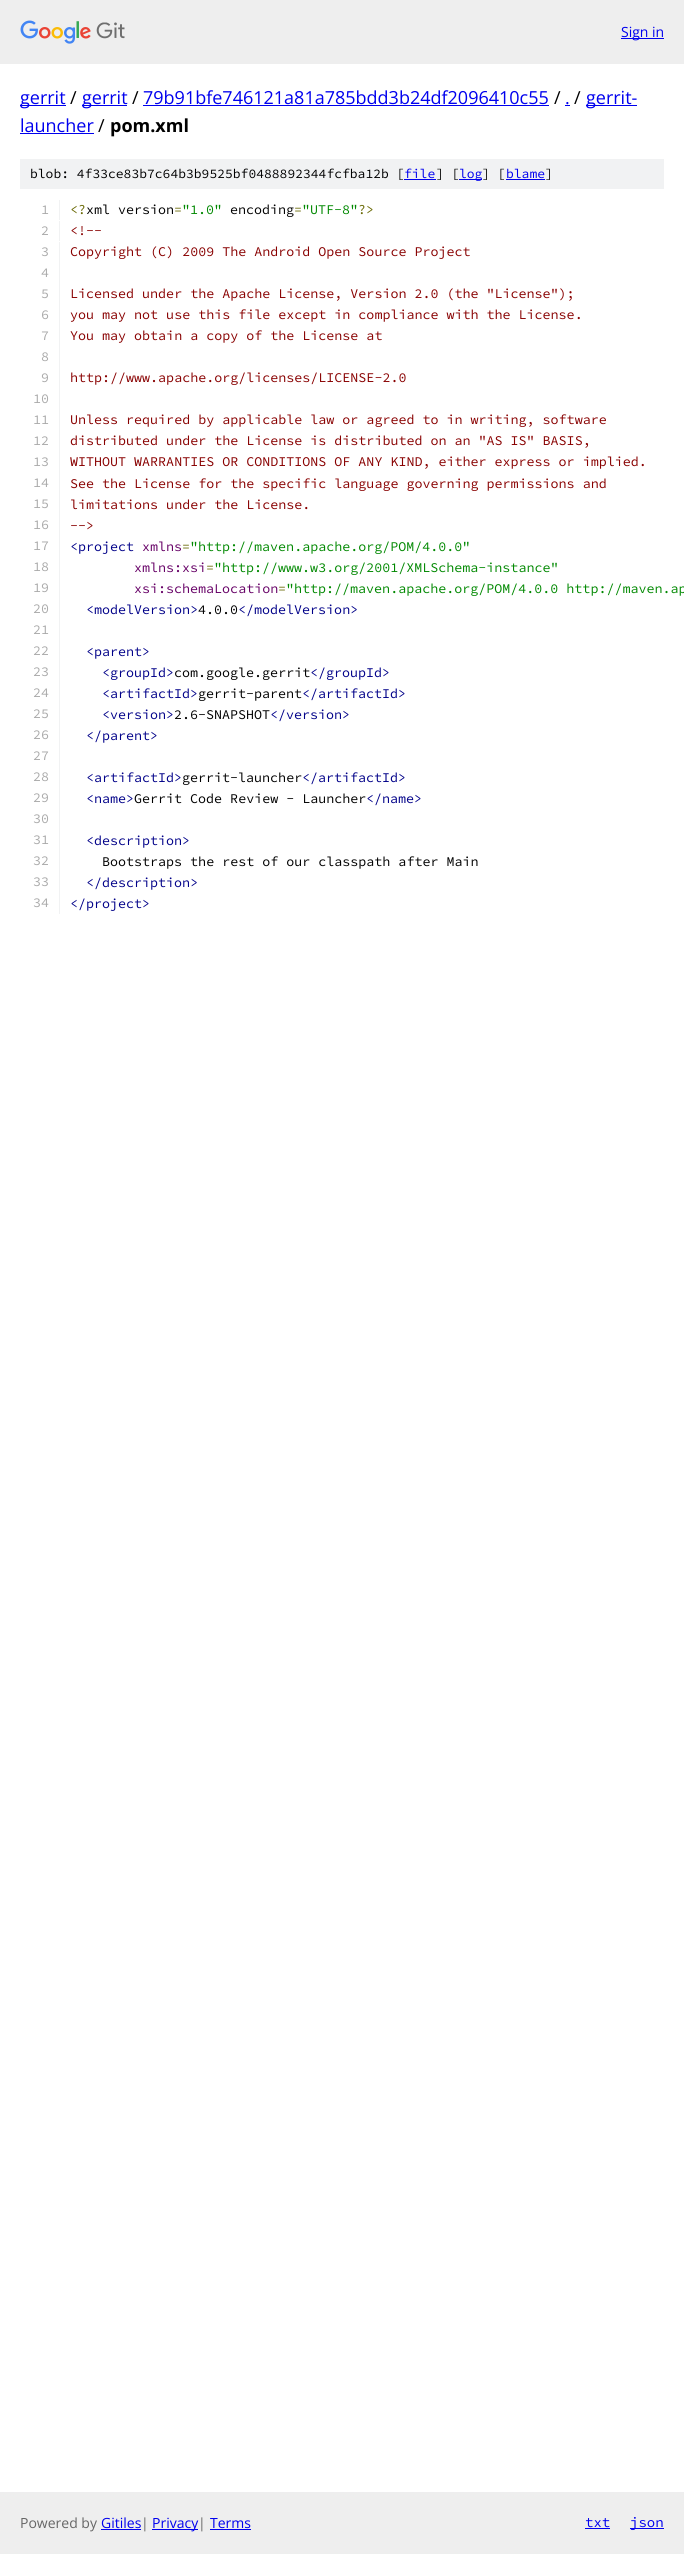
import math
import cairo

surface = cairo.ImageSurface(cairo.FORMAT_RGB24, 684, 2554)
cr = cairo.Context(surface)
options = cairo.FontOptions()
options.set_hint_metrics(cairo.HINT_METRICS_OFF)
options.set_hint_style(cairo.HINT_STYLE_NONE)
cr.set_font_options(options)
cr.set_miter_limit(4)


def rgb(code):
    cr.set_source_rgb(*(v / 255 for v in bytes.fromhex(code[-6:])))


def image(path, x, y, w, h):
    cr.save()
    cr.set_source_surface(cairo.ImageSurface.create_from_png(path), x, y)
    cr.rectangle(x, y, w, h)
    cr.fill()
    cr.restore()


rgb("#ffffff")
cr.paint()
rgb("#eeeeee")
cr.rectangle(0, 0, 684, 64)
cr.fill()
image("img/1.png", 20, 20, 105, 24)
for x, y, w, h, color in [
    (621, 38, 43, 1, "#0000ee"),
    (20, 105, 46, 1, "#0000ee"),
    (82, 105, 45, 1, "#0000ee"),
    (143, 105, 406, 1, "#0000ee"),
    (565, 105, 5, 1, "#0000ee"),
    (586, 105, 51, 1, "#0000ee"),
    (20, 133, 74, 1, "#0000ee"),
    (20, 159, 644, 30, "#f1f2f3"),
    (404, 179, 32, 1, "#0000ee"),
    (459, 179, 23, 1, "#0000ee"),
    (506, 179, 39, 1, "#0000ee"),
    (59, 200, 1, 20, "#f1f2f3"),
    (59, 221, 1, 20, "#f1f2f3"),
    (59, 242, 1, 672, "#f1f2f3"),
    (0, 2492, 684, 62, "#eeeeee"),
    (101, 2529, 40, 1, "#0000ee"),
    (152, 2529, 46, 1, "#0000ee"),
    (210, 2529, 41, 1, "#0000ee"),
    (585, 2528, 25, 1, "#0000ee"),
    (630, 2528, 34, 1, "#0000ee"),
]:
    rgb(color)
    cr.rectangle(x, y, w, h)
    cr.fill()
cr.select_font_face("Open Sans")
cr.set_font_size(14)
cr.move_to(621, 37)
cr.show_text("Sign in")
cr.set_font_size(18)
cr.move_to(20, 104)
cr.show_text("gerrit")
rgb("#000000")
cr.move_to(70, 104)
cr.show_text("/")
rgb("#0000ee")
cr.move_to(82, 104)
cr.show_text("gerrit")
rgb("#000000")
cr.move_to(132, 104)
cr.show_text("/")
rgb("#0000ee")
cr.move_to(143, 104)
cr.show_text("79b91bfe746121a81a785bdd3b24df2096410c55")
rgb("#000000")
cr.move_to(554, 104)
cr.show_text("/")
rgb("#0000ee")
cr.move_to(565, 104)
cr.show_text(".")
rgb("#000000")
cr.move_to(574, 104)
cr.show_text("/")
rgb("#0000ee")
cr.move_to(586, 104)
cr.show_text("gerrit-")
cr.move_to(20, 132)
cr.show_text("launcher")
rgb("#000000")
cr.move_to(98, 132)
cr.show_text("/")
cr.select_font_face("Open Sans", cairo.FONT_SLANT_NORMAL, cairo.FONT_WEIGHT_BOLD)
cr.move_to(110, 132)
cr.show_text("pom.xml")
cr.select_font_face("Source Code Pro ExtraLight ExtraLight")
cr.set_font_size(13)
cr.move_to(30, 178)
cr.show_text("blob: 4f33ce83b7c64b3b9525bf0488892344fcfba12b [")
rgb("#0000ee")
cr.move_to(404, 178)
cr.show_text("file")
rgb("#000000")
cr.move_to(436, 178)
cr.show_text("] [")
rgb("#0000ee")
cr.move_to(459, 178)
cr.show_text("log")
rgb("#000000")
cr.move_to(482, 178)
cr.show_text("] [")
rgb("#0000ee")
cr.move_to(506, 178)
cr.show_text("blame")
rgb("#000000")
cr.move_to(545, 178)
cr.show_text("]")
cr.set_font_size(13.35)
rgb("#aaaaaa")
cr.move_to(41, 214)
cr.show_text("1")
rgb("#666600")
cr.move_to(70, 214)
cr.show_text("<?")
rgb("#000000")
cr.move_to(86, 214)
cr.show_text("xml version")
rgb("#666600")
cr.move_to(174, 214)
cr.show_text("=")
rgb("#008800")
cr.move_to(182, 214)
cr.show_text("\"1.0\"")
rgb("#000000")
cr.move_to(230, 214)
cr.show_text("encoding")
rgb("#666600")
cr.move_to(294, 214)
cr.show_text("=")
rgb("#008800")
cr.move_to(302, 214)
cr.show_text("\"UTF-8\"")
rgb("#666600")
cr.move_to(358, 214)
cr.show_text("?>")
rgb("#aaaaaa")
cr.move_to(41, 235)
cr.show_text("2")
rgb("#880000")
cr.move_to(70, 235)
cr.show_text("<!--")
rgb("#aaaaaa")
cr.move_to(41, 256)
cr.show_text("3")
rgb("#880000")
cr.move_to(70, 256)
cr.show_text("Copyright (C) 2009 The Android Open Source Project")
rgb("#aaaaaa")
cr.move_to(41, 277)
cr.show_text("4")
cr.move_to(41, 298)
cr.show_text("5")
rgb("#880000")
cr.move_to(70, 298)
cr.show_text("Licensed under the Apache License, Version 2.0 (the \"License\");")
rgb("#aaaaaa")
cr.move_to(41, 319)
cr.show_text("6")
rgb("#880000")
cr.move_to(70, 319)
cr.show_text("you may not use this file except in compliance with the License.")
rgb("#aaaaaa")
cr.move_to(41, 340)
cr.show_text("7")
rgb("#880000")
cr.move_to(70, 340)
cr.show_text("You may obtain a copy of the License at")
rgb("#aaaaaa")
cr.move_to(41, 361)
cr.show_text("8")
cr.move_to(41, 382)
cr.show_text("9")
rgb("#880000")
cr.move_to(70, 382)
cr.show_text("http://www.apache.org/licenses/LICENSE-2.0")
rgb("#aaaaaa")
cr.move_to(33, 403)
cr.show_text("10")
cr.move_to(33, 424)
cr.show_text("11")
rgb("#880000")
cr.move_to(70, 424)
cr.show_text("Unless required by applicable law or agreed to in writing, software")
rgb("#aaaaaa")
cr.move_to(33, 445)
cr.show_text("12")
rgb("#880000")
cr.move_to(70, 445)
cr.show_text("distributed under the License is distributed on an \"AS IS\" BASIS,")
rgb("#aaaaaa")
cr.move_to(33, 466)
cr.show_text("13")
rgb("#880000")
cr.move_to(70, 466)
cr.show_text("WITHOUT WARRANTIES OR CONDITIONS OF ANY KIND, either express or implied.")
rgb("#aaaaaa")
cr.move_to(33, 487)
cr.show_text("14")
rgb("#880000")
cr.move_to(70, 488)
cr.show_text("See the License for the specific language governing permissions and")
rgb("#aaaaaa")
cr.move_to(33, 508)
cr.show_text("15")
rgb("#880000")
cr.move_to(70, 509)
cr.show_text("limitations under the License.")
rgb("#aaaaaa")
cr.move_to(33, 529)
cr.show_text("16")
rgb("#880000")
cr.move_to(70, 530)
cr.show_text("-->")
rgb("#aaaaaa")
cr.move_to(33, 550)
cr.show_text("17")
rgb("#000088")
cr.move_to(70, 551)
cr.show_text("<project")
rgb("#660066")
cr.move_to(142, 551)
cr.show_text("xmlns")
rgb("#666600")
cr.move_to(182, 551)
cr.show_text("=")
rgb("#008800")
cr.move_to(190, 551)
cr.show_text("\"http://maven.apache.org/POM/4.0.0\"")
rgb("#aaaaaa")
cr.move_to(33, 571)
cr.show_text("18")
rgb("#660066")
cr.move_to(134, 572)
cr.show_text("xmlns:xsi")
rgb("#666600")
cr.move_to(206, 572)
cr.show_text("=")
rgb("#008800")
cr.move_to(214, 572)
cr.show_text("\"http://www.w3.org/2001/XMLSchema-instance\"")
rgb("#aaaaaa")
cr.move_to(33, 592)
cr.show_text("19")
rgb("#660066")
cr.move_to(134, 593)
cr.show_text("xsi:schemaLocation")
rgb("#666600")
cr.move_to(278, 593)
cr.show_text("=")
rgb("#008800")
cr.move_to(286, 593)
cr.show_text("\"http://maven.apache.org/POM/4.0.0 http://maven.ap")
rgb("#aaaaaa")
cr.move_to(33, 613)
cr.show_text("20")
rgb("#000088")
cr.move_to(86, 614)
cr.show_text("<modelVersion>")
rgb("#000000")
cr.move_to(198, 614)
cr.show_text("4.0.0")
rgb("#000088")
cr.move_to(238, 614)
cr.show_text("</modelVersion>")
rgb("#aaaaaa")
cr.move_to(33, 634)
cr.show_text("21")
cr.move_to(33, 655)
cr.show_text("22")
rgb("#000088")
cr.move_to(86, 656)
cr.show_text("<parent>")
rgb("#aaaaaa")
cr.move_to(33, 676)
cr.show_text("23")
rgb("#000088")
cr.move_to(102, 677)
cr.show_text("<groupId>")
rgb("#000000")
cr.move_to(174, 677)
cr.show_text("com.google.gerrit")
rgb("#000088")
cr.move_to(310, 677)
cr.show_text("</groupId>")
rgb("#aaaaaa")
cr.move_to(33, 697)
cr.show_text("24")
rgb("#000088")
cr.move_to(102, 698)
cr.show_text("<artifactId>")
rgb("#000000")
cr.move_to(198, 698)
cr.show_text("gerrit-parent")
rgb("#000088")
cr.move_to(302, 698)
cr.show_text("</artifactId>")
rgb("#aaaaaa")
cr.move_to(33, 718)
cr.show_text("25")
rgb("#000088")
cr.move_to(102, 719)
cr.show_text("<version>")
rgb("#000000")
cr.move_to(174, 719)
cr.show_text("2.6-SNAPSHOT")
rgb("#000088")
cr.move_to(270, 719)
cr.show_text("</version>")
rgb("#aaaaaa")
cr.move_to(33, 739)
cr.show_text("26")
rgb("#000088")
cr.move_to(86, 740)
cr.show_text("</parent>")
rgb("#aaaaaa")
cr.move_to(33, 760)
cr.show_text("27")
cr.move_to(33, 781)
cr.show_text("28")
rgb("#000088")
cr.move_to(86, 782)
cr.show_text("<artifactId>")
rgb("#000000")
cr.move_to(182, 782)
cr.show_text("gerrit-launcher")
rgb("#000088")
cr.move_to(302, 782)
cr.show_text("</artifactId>")
rgb("#aaaaaa")
cr.move_to(33, 802)
cr.show_text("29")
rgb("#000088")
cr.move_to(86, 803)
cr.show_text("<name>")
rgb("#000000")
cr.move_to(134, 803)
cr.show_text("Gerrit Code Review - Launcher")
rgb("#000088")
cr.move_to(366, 803)
cr.show_text("</name>")
rgb("#aaaaaa")
cr.move_to(33, 823)
cr.show_text("30")
cr.move_to(33, 844)
cr.show_text("31")
rgb("#000088")
cr.move_to(86, 845)
cr.show_text("<description>")
rgb("#aaaaaa")
cr.move_to(33, 865)
cr.show_text("32")
rgb("#000000")
cr.move_to(102, 866)
cr.show_text("Bootstraps the rest of our classpath after Main")
rgb("#aaaaaa")
cr.move_to(33, 886)
cr.show_text("33")
rgb("#000088")
cr.move_to(86, 887)
cr.show_text("</description>")
rgb("#aaaaaa")
cr.move_to(33, 907)
cr.show_text("34")
rgb("#000088")
cr.move_to(70, 908)
cr.show_text("</project>")
cr.select_font_face("Open Sans")
cr.set_font_size(14)
rgb("#666666")
cr.move_to(20, 2528)
cr.show_text("Powered by")
rgb("#0000ee")
cr.move_to(101, 2528)
cr.show_text("Gitiles")
rgb("#666666")
cr.move_to(141, 2528)
cr.show_text("|")
rgb("#0000ee")
cr.move_to(152, 2528)
cr.show_text("Privacy")
rgb("#666666")
cr.move_to(198, 2528)
cr.show_text("|")
rgb("#0000ee")
cr.move_to(210, 2528)
cr.show_text("Terms")
cr.select_font_face("Source Code Pro ExtraLight ExtraLight")
cr.move_to(585, 2527)
cr.show_text("txt")
cr.move_to(630, 2527)
cr.show_text("json")
surface.write_to_png("page.png")
